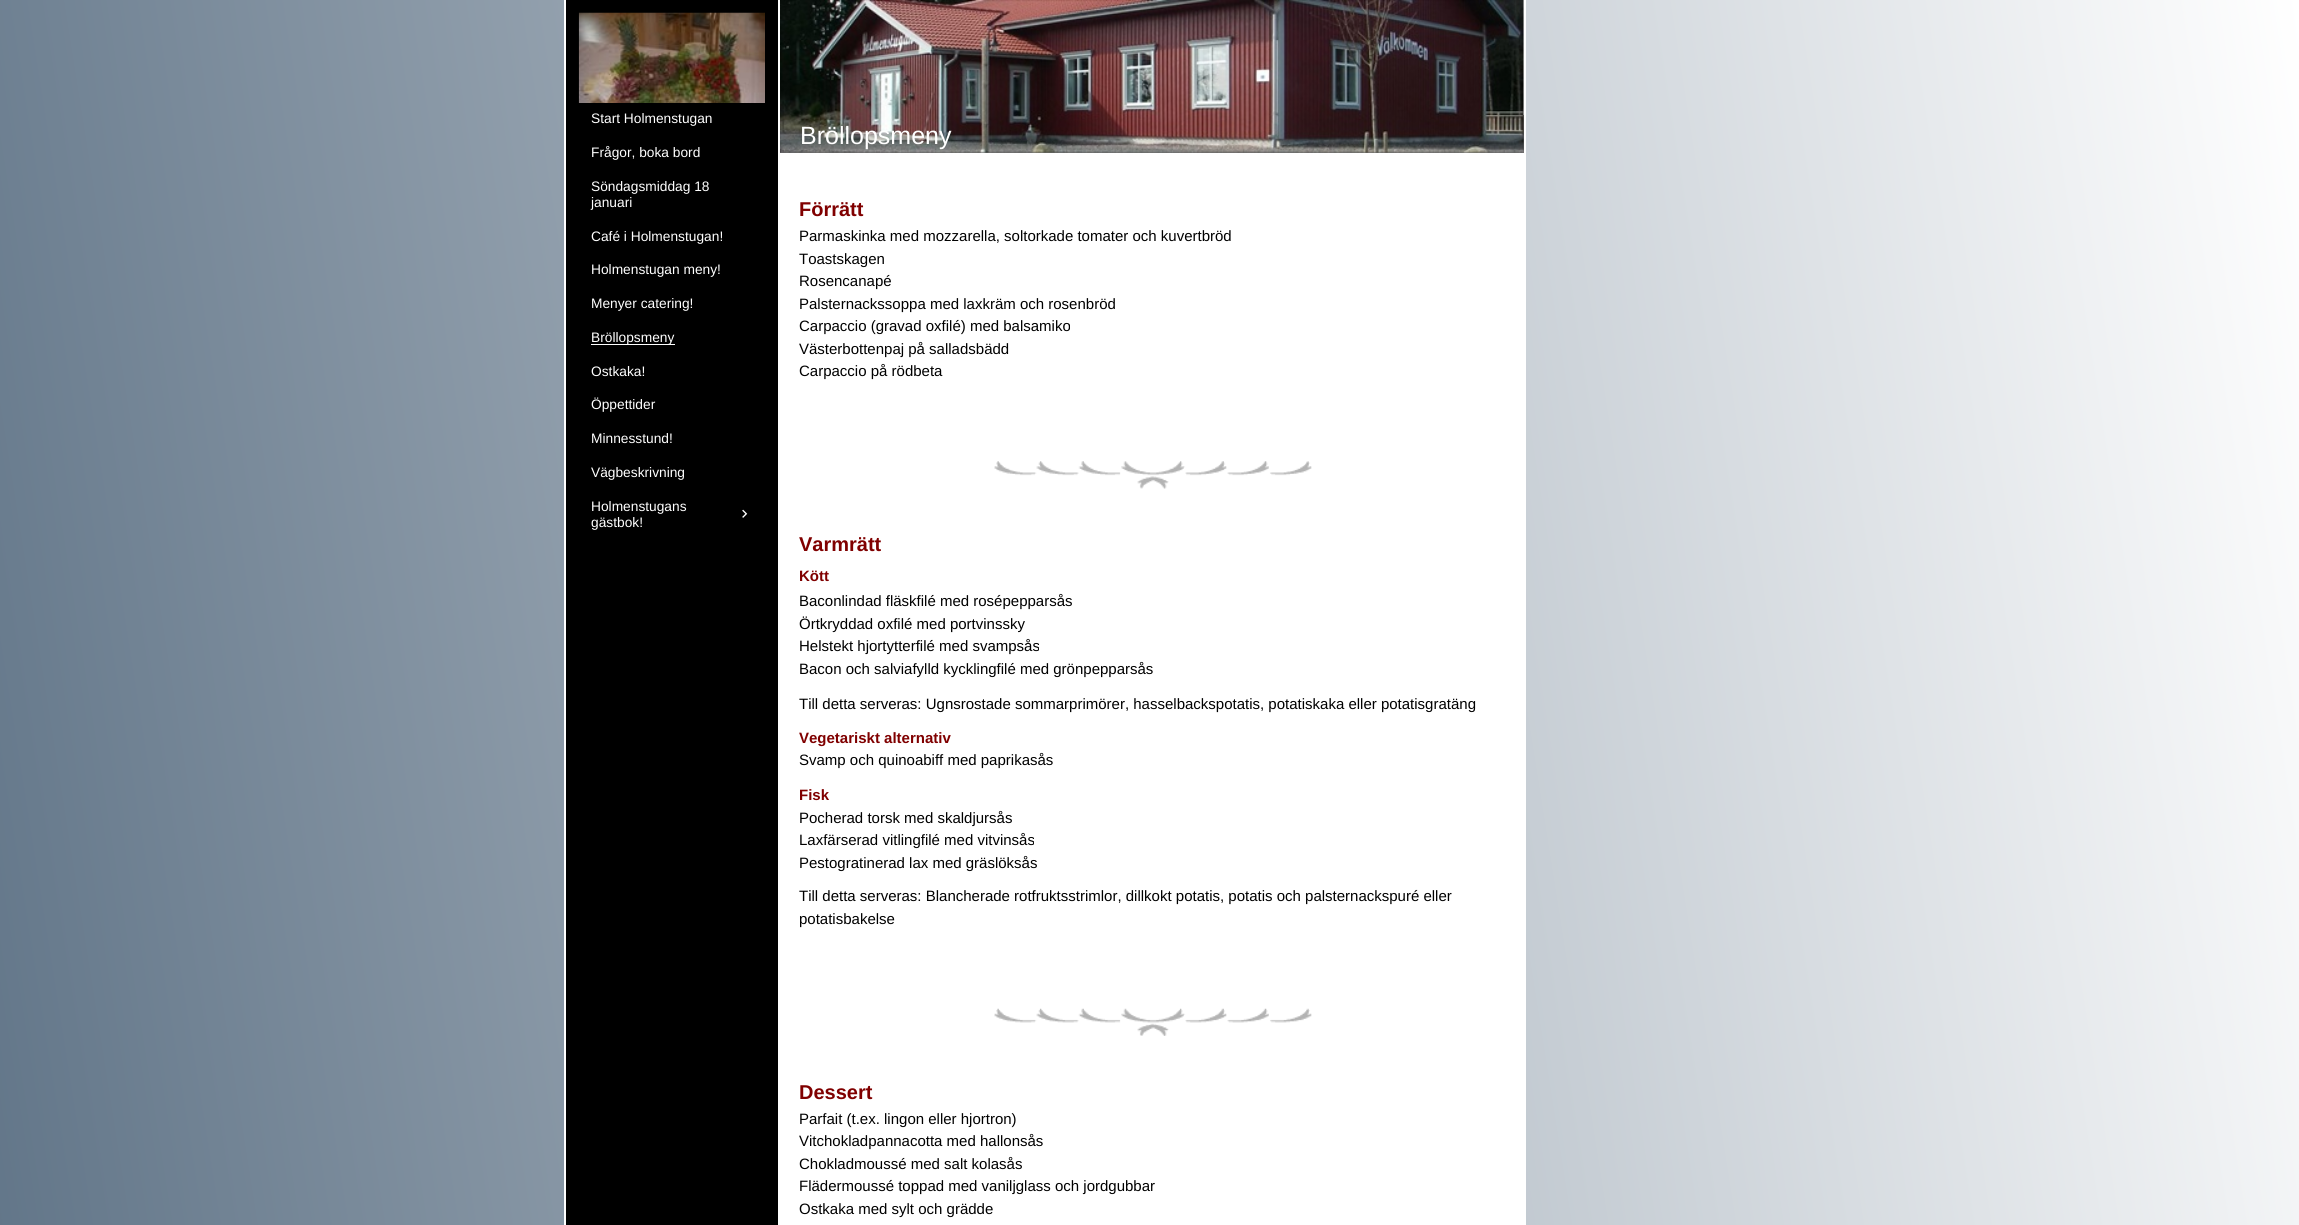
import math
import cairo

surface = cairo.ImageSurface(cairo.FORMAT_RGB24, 2299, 1225)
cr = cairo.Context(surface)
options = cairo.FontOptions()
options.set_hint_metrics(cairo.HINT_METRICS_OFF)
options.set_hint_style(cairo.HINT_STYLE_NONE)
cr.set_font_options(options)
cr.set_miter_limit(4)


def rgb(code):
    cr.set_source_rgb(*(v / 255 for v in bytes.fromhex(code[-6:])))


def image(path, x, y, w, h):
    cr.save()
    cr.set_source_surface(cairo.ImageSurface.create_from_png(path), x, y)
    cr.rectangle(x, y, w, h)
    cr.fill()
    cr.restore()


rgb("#ffffff")
cr.paint()
gradient = cairo.LinearGradient(-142, 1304, 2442, 895)
gradient.add_color_stop_rgba(0, 0.349, 0.431, 0.51, 1)
gradient.add_color_stop_rgba(1, 1, 1, 1, 1)
cr.set_source(gradient)
cr.rectangle(0, 0, 2299, 1225)
cr.fill()
for x, y, w, h, color in [
    (564, 0, 962, 1225, "#ffffff"),
    (566, 0, 212, 1225, "#000000"),
    (591, 344, 84, 1, "#ffffff"),
]:
    rgb(color)
    cr.rectangle(x, y, w, h)
    cr.fill()
image("img/1.png", 742, 509, 6, 9)
image("img/2.png", 578, 12, 187, 91)
rgb("#666666")
cr.rectangle(780, 115, 744, 38)
cr.fill()
image("img/3.png", 780, 0, 744, 153)
image("img/4.png", 994, 461, 318, 28)
image("img/5.png", 994, 1008, 318, 28)
cr.select_font_face("Liberation Sans")
cr.set_font_size(13.75)
rgb("#ffffff")
for x, y, s in [
    (591, 123, "Start Holmenstugan"),
    (591, 157, "Frågor, boka bord"),
    (591, 191, "Söndagsmiddag 18"),
    (591, 207, "januari"),
    (591, 241, "Café i Holmenstugan!"),
    (591, 274, "Holmenstugan meny!"),
    (591, 308, "Menyer catering!"),
    (591, 342, "Bröllopsmeny"),
    (591, 376, "Ostkaka!"),
    (591, 409, "Öppettider"),
    (591, 443, "Minnesstund!"),
    (591, 477, "Vägbeskrivning"),
    (591, 511, "Holmenstugans"),
    (591, 527, "gästbok!"),
]:
    cr.move_to(x, y)
    cr.show_text(s)
cr.set_font_size(25)
cr.move_to(800, 144)
cr.show_text("Bröllopsmeny")
cr.select_font_face("Liberation Sans", cairo.FONT_SLANT_NORMAL, cairo.FONT_WEIGHT_BOLD)
cr.set_font_size(20)
rgb("#800000")
cr.move_to(799, 216)
cr.show_text("Förrätt")
cr.select_font_face("Liberation Sans")
cr.set_font_size(15)
rgb("#000000")
for x, y, s in [
    (799, 241, "Parmaskinka med mozzarella, soltorkade tomater och kuvertbröd"),
    (799, 264, "Toastskagen"),
    (799, 286, "Rosencanapé"),
    (799, 309, "Palsternackssoppa med laxkräm och rosenbröd"),
    (799, 331, "Carpaccio (gravad oxfilé) med balsamiko"),
    (799, 354, "Västerbottenpaj på salladsbädd"),
    (799, 376, "Carpaccio på rödbeta"),
]:
    cr.move_to(x, y)
    cr.show_text(s)
cr.select_font_face("Liberation Sans", cairo.FONT_SLANT_NORMAL, cairo.FONT_WEIGHT_BOLD)
cr.set_font_size(20)
rgb("#800000")
cr.move_to(799, 551)
cr.show_text("Varmrätt")
cr.set_font_size(15)
cr.move_to(799, 581)
cr.show_text("Kött")
cr.select_font_face("Liberation Sans")
rgb("#000000")
for x, y, s in [
    (799, 606, "Baconlindad fläskfilé med rosépepparsås"),
    (799, 629, "Örtkryddad oxfilé med portvinssky"),
    (799, 651, "Helstekt hjortytterfilé med svampsås"),
    (799, 674, "Bacon och salviafylld kycklingfilé med grönpepparsås"),
    (799, 709, "Till detta serveras: Ugnsrostade sommarprimörer, hasselbackspotatis, potatiskaka eller potatisgratäng"),
]:
    cr.move_to(x, y)
    cr.show_text(s)
cr.select_font_face("Liberation Sans", cairo.FONT_SLANT_NORMAL, cairo.FONT_WEIGHT_BOLD)
rgb("#800000")
cr.move_to(799, 743)
cr.show_text("Vegetariskt alternativ")
cr.select_font_face("Liberation Sans")
rgb("#000000")
cr.move_to(799, 765)
cr.show_text("Svamp och quinoabiff med paprikasås")
cr.select_font_face("Liberation Sans", cairo.FONT_SLANT_NORMAL, cairo.FONT_WEIGHT_BOLD)
rgb("#800000")
cr.move_to(799, 800)
cr.show_text("Fisk")
cr.select_font_face("Liberation Sans")
rgb("#000000")
for x, y, s in [
    (799, 823, "Pocherad torsk med skaldjursås"),
    (799, 845, "Laxfärserad vitlingfilé med vitvinsås"),
    (799, 868, "Pestogratinerad lax med gräslöksås"),
    (799, 901, "Till detta serveras: Blancherade rotfruktsstrimlor, dillkokt potatis, potatis och palsternackspuré eller"),
    (799, 924, "potatisbakelse"),
]:
    cr.move_to(x, y)
    cr.show_text(s)
cr.select_font_face("Liberation Sans", cairo.FONT_SLANT_NORMAL, cairo.FONT_WEIGHT_BOLD)
cr.set_font_size(20)
rgb("#800000")
cr.move_to(799, 1099)
cr.show_text("Dessert")
cr.select_font_face("Liberation Sans")
cr.set_font_size(15)
rgb("#000000")
for x, y, s in [
    (799, 1124, "Parfait (t.ex. lingon eller hjortron)"),
    (799, 1146, "Vitchokladpannacotta med hallonsås"),
    (799, 1169, "Chokladmoussé med salt kolasås"),
    (799, 1191, "Flädermoussé toppad med vaniljglass och jordgubbar"),
    (799, 1214, "Ostkaka med sylt och grädde"),
]:
    cr.move_to(x, y)
    cr.show_text(s)
surface.write_to_png("page.png")
